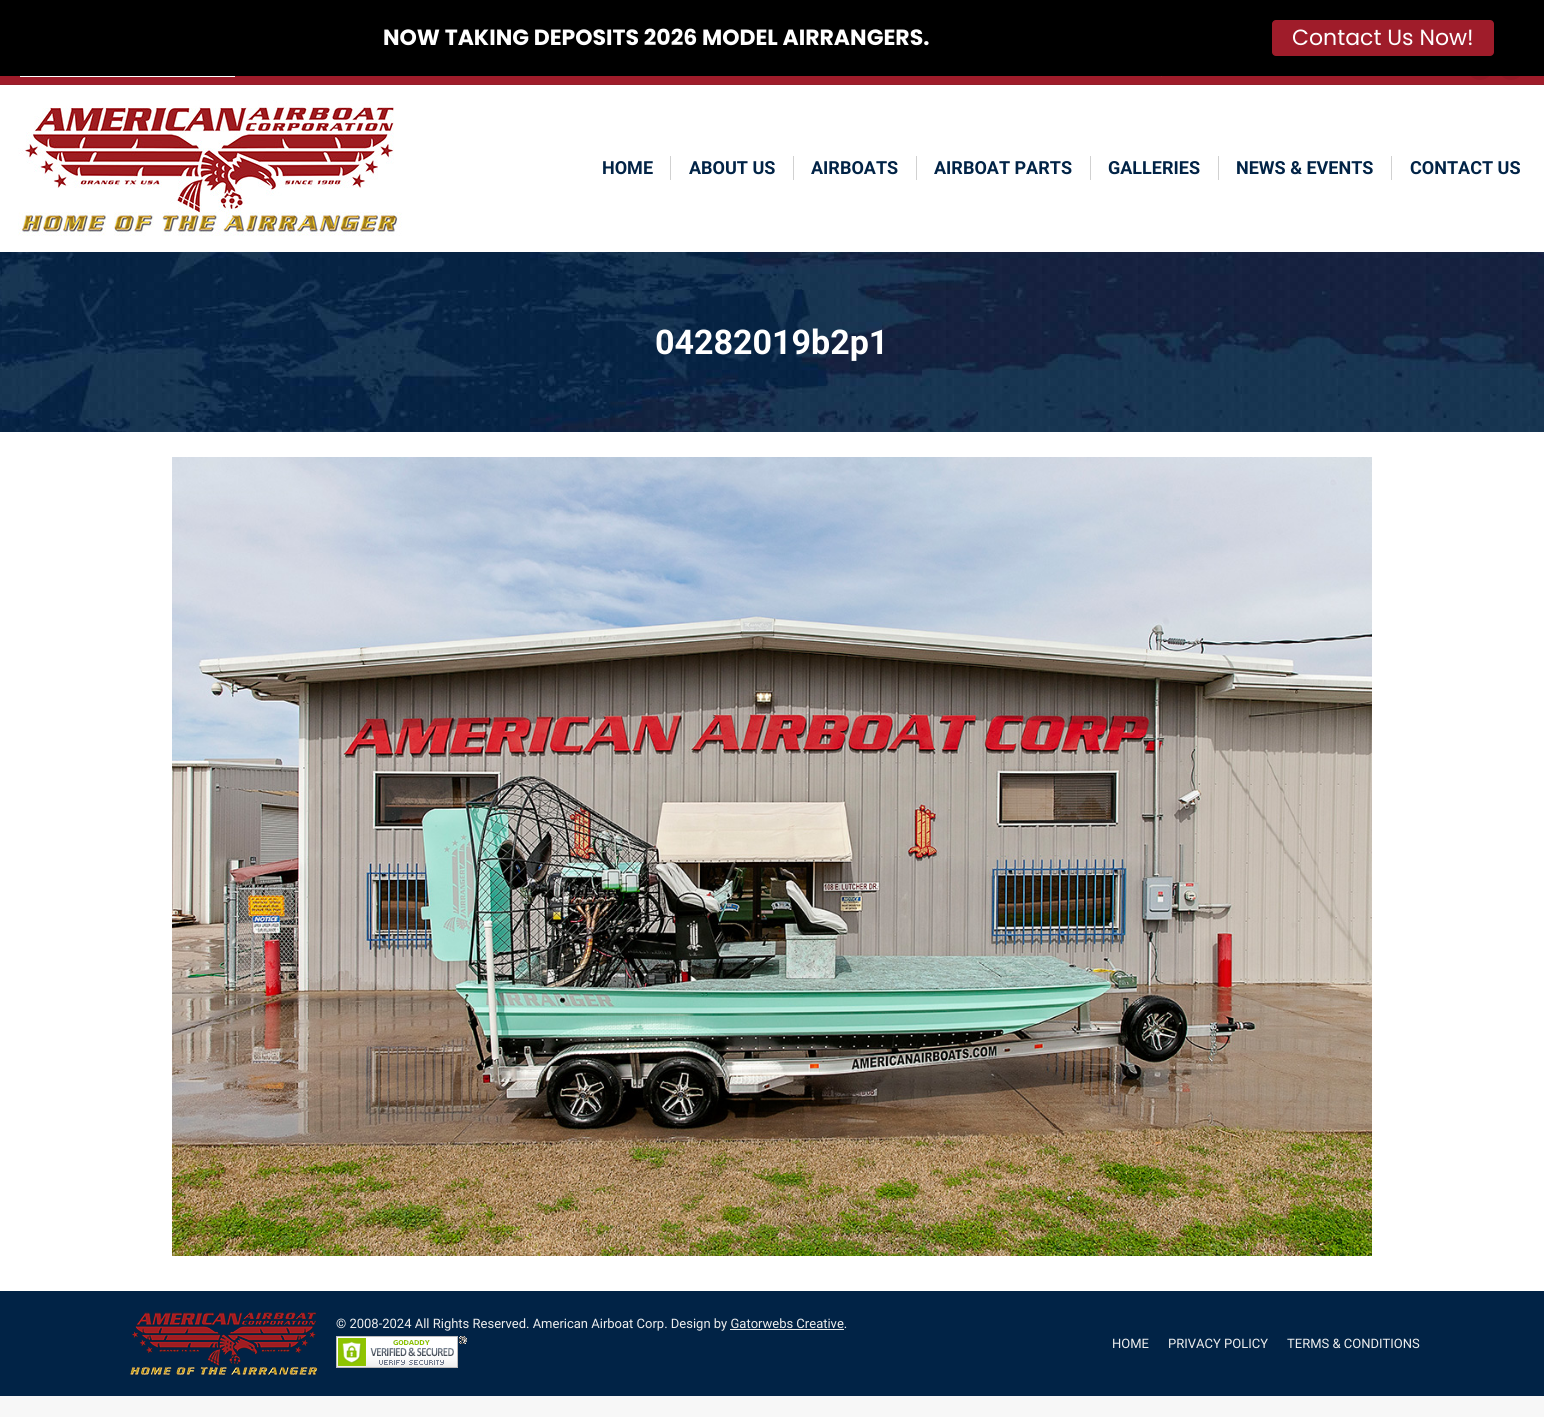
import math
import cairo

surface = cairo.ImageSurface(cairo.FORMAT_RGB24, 1544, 1417)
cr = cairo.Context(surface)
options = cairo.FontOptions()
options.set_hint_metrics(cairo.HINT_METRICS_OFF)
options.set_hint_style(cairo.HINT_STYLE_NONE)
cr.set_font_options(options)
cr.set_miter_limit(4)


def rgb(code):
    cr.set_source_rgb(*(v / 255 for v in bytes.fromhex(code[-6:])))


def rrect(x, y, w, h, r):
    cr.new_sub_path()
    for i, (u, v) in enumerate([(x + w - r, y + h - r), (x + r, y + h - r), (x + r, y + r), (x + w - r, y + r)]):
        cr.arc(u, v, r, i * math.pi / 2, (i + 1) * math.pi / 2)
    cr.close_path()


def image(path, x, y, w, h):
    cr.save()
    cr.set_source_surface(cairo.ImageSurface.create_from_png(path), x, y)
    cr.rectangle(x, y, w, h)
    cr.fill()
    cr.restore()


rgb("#f7f7f7")
cr.paint()
rgb("#9f1c2a")
cr.rectangle(0, 76, 1544, 8)
cr.fill()
rgb("#951a27")
cr.arc(1480, 67, 13, 0, 2 * math.pi)
cr.fill()
cr.arc(1511, 67, 13, 0, 2 * math.pi)
cr.fill()
rgb("#000000")
cr.rectangle(0, 0, 1544, 76)
cr.fill()
rgb("#9f1c2a")
rrect(1272, 20, 222, 36, 4)
cr.fill()
rgb("#ffffff")
cr.rectangle(0, 85, 1544, 1206)
cr.fill()
image("img/1.png", 1161, 76, 1, 1)
image("img/2.png", 20, 76, 215, 1)
rgb("#931f2b")
cr.rectangle(0, 84, 1544, 1)
cr.fill()
image("img/3.png", 18, 100, 384, 136)
for x, y, w, h, color in [
    (670, 156, 1, 24, "#d1d1d1"),
    (793, 156, 1, 24, "#d1d1d1"),
    (916, 156, 1, 24, "#d1d1d1"),
    (1090, 156, 1, 24, "#d1d1d1"),
    (1218, 156, 1, 24, "#d1d1d1"),
    (1391, 156, 1, 24, "#d1d1d1"),
]:
    rgb(color)
    cr.rectangle(x, y, w, h)
    cr.fill()
image("img/4.png", 0, 252, 1544, 180)
image("img/5.png", 172, 457, 1200, 799)
rgb("#012346")
cr.rectangle(0, 1291, 1544, 105)
cr.fill()
image("img/6.png", 129, 1312, 189, 64)
rgb("#eeeeee")
cr.rectangle(730, 1329, 114, 1)
cr.fill()
image("img/7.png", 336, 1336, 131, 32)
cr.select_font_face("Poppins", cairo.FONT_SLANT_NORMAL, cairo.FONT_WEIGHT_BOLD)
cr.set_font_size(22)
rgb("#ffffff")
cr.move_to(383, 45)
cr.show_text("NOW TAKING DEPOSITS 2026 MODEL AIRRANGERS.")
cr.select_font_face("Poppins")
cr.move_to(1292, 45)
cr.show_text("Contact Us Now!")
cr.select_font_face("Roboto", cairo.FONT_SLANT_NORMAL, cairo.FONT_WEIGHT_BOLD)
cr.set_font_size(18)
rgb("#012346")
for x, y, s in [
    (602, 174, "HOME"),
    (689, 174, "ABOUT US"),
    (811, 174, "AIRBOATS"),
    (934, 174, "AIRBOAT PARTS"),
    (1108, 174, "GALLERIES"),
    (1236, 174, "NEWS & EVENTS"),
    (1410, 174, "CONTACT US"),
]:
    cr.move_to(x, y)
    cr.show_text(s)
cr.set_font_size(34)
rgb("#ffffff")
cr.move_to(655, 354)
cr.show_text("04282019b2p1")
cr.select_font_face("Roboto")
cr.set_font_size(13)
rgb("#eeeeee")
for x, y, s in [
    (336, 1328, "© 2008-2024 All Rights Reserved. American Airboat Corp. Design by Gatorwebs Creative."),
    (1112, 1348, "HOME"),
    (1168, 1348, "PRIVACY POLICY"),
    (1287, 1348, "TERMS & CONDITIONS"),
]:
    cr.move_to(x, y)
    cr.show_text(s)
surface.write_to_png("page.png")
